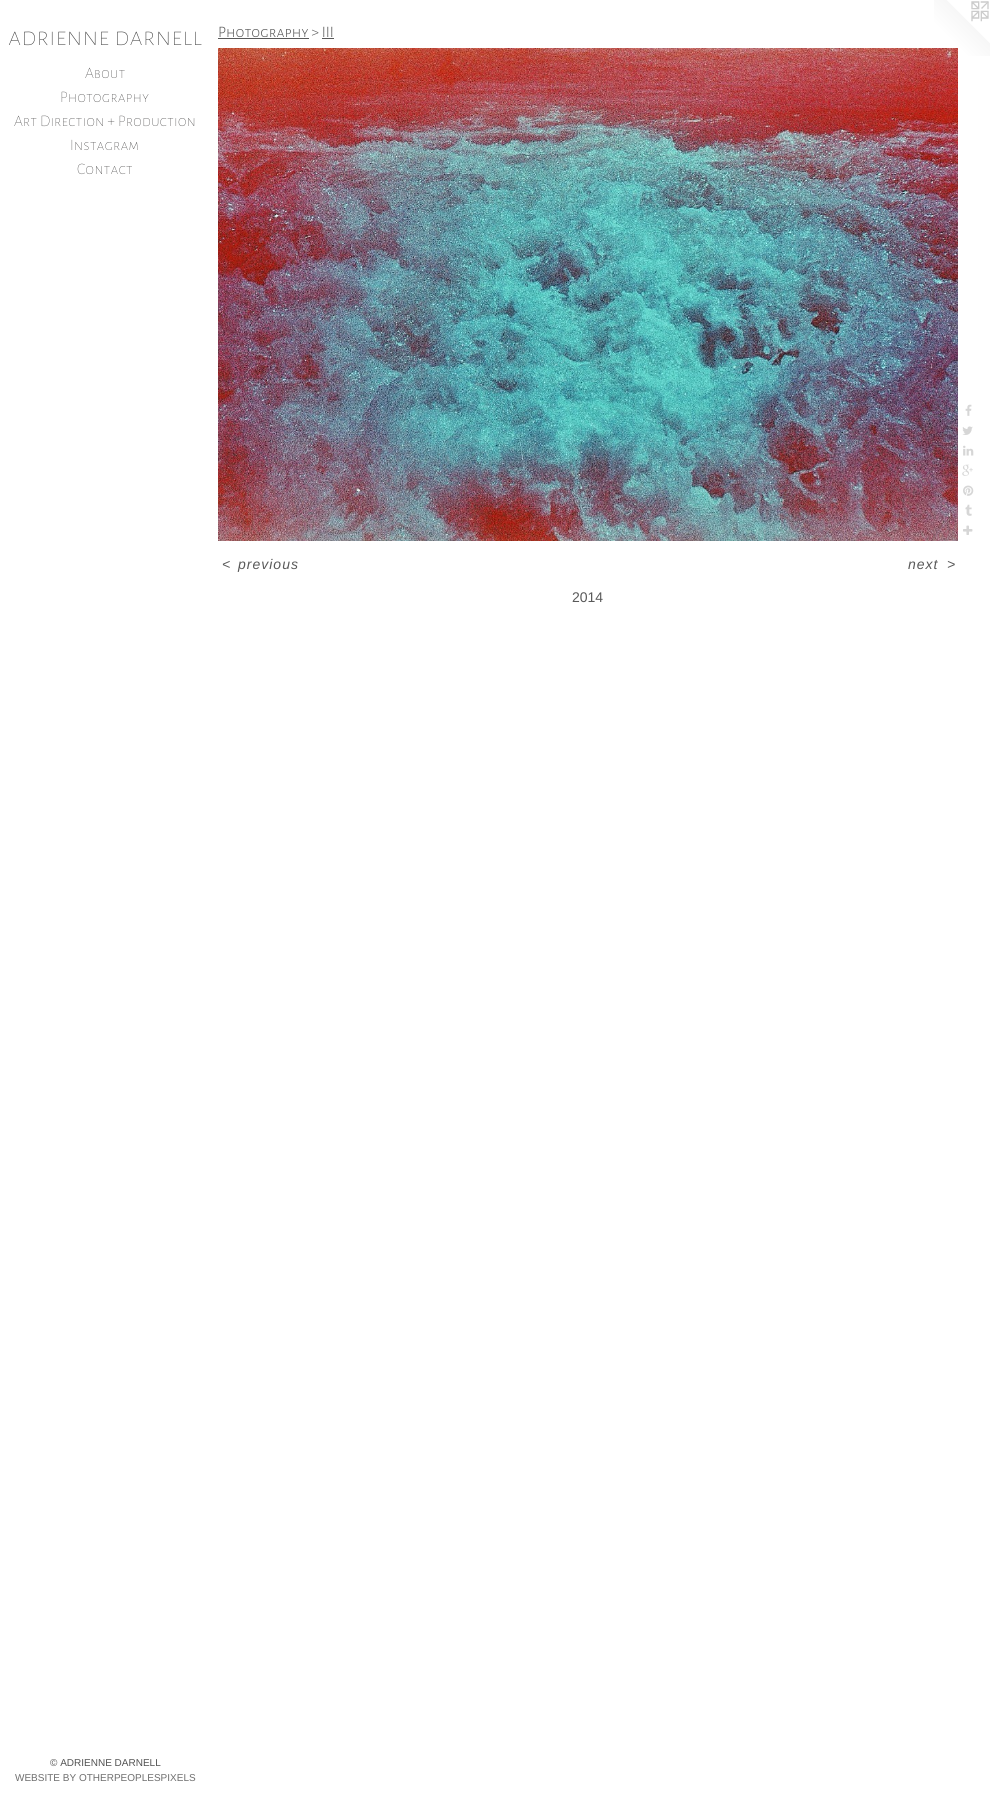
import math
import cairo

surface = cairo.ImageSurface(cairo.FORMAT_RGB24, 990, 1808)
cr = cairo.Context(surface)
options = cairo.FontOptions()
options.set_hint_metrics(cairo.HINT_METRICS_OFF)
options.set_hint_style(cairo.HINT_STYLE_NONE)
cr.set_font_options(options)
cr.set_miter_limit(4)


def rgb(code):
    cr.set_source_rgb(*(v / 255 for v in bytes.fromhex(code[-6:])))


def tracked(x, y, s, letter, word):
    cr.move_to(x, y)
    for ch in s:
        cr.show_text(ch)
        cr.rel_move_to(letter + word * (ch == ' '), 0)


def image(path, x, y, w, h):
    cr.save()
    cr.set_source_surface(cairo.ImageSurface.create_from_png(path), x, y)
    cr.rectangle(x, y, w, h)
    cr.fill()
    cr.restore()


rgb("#ffffff")
cr.paint()
rgb("#595959")
cr.rectangle(218, 38, 91, 1)
cr.fill()
cr.rectangle(322, 38, 12, 1)
cr.fill()
image("img/9.png", 934, 0, 56, 56)
image("img/1.png", 218, 48, 740, 493)
image("img/2.png", 965, 404, 7, 12)
image("img/3.png", 962, 426, 11, 9)
image("img/4.png", 963, 445, 11, 11)
image("img/5.png", 962, 464, 11, 12)
image("img/6.png", 963, 485, 11, 11)
image("img/7.png", 965, 504, 7, 12)
image("img/8.png", 963, 525, 10, 10)
cr.select_font_face("Alegreya Sans SC Thin")
cr.set_font_size(27)
rgb("#363636")
cr.move_to(8, 45)
cr.show_text("adrienne darnell")
cr.set_font_size(16)
rgb("#2c2b2b")
for x, y, s in [
    (85, 78, "About"),
    (60, 102, "Photography"),
    (14, 126, "Art Direction + Production"),
    (70, 150, "Instagram"),
    (77, 174, "Contact"),
]:
    cr.move_to(x, y)
    cr.show_text(s)
cr.select_font_face("Liberation Sans")
cr.set_font_size(10)
rgb("#525252")
cr.move_to(50, 1766)
cr.show_text("© ADRIENNE DARNELL")
rgb("#6e6e6e")
cr.move_to(15, 1781)
cr.show_text("WEBSITE BY OTHERPEOPLESPIXELS")
cr.select_font_face("Alegreya Sans SC Light")
cr.set_font_size(16)
rgb("#595959")
cr.move_to(218, 37)
cr.show_text("Photography > III")
cr.select_font_face("Liberation Sans", cairo.FONT_SLANT_ITALIC)
cr.set_font_size(14)
for x, y, s in [
    (222, 569, "<"),
    (238, 569, "previous"),
    (908, 569, "next"),
    (947, 569, ">"),
]:
    tracked(x, y, s, 1, 0)
cr.select_font_face("Liberation Sans")
cr.move_to(572, 602)
cr.show_text("2014")
surface.write_to_png("page.png")
